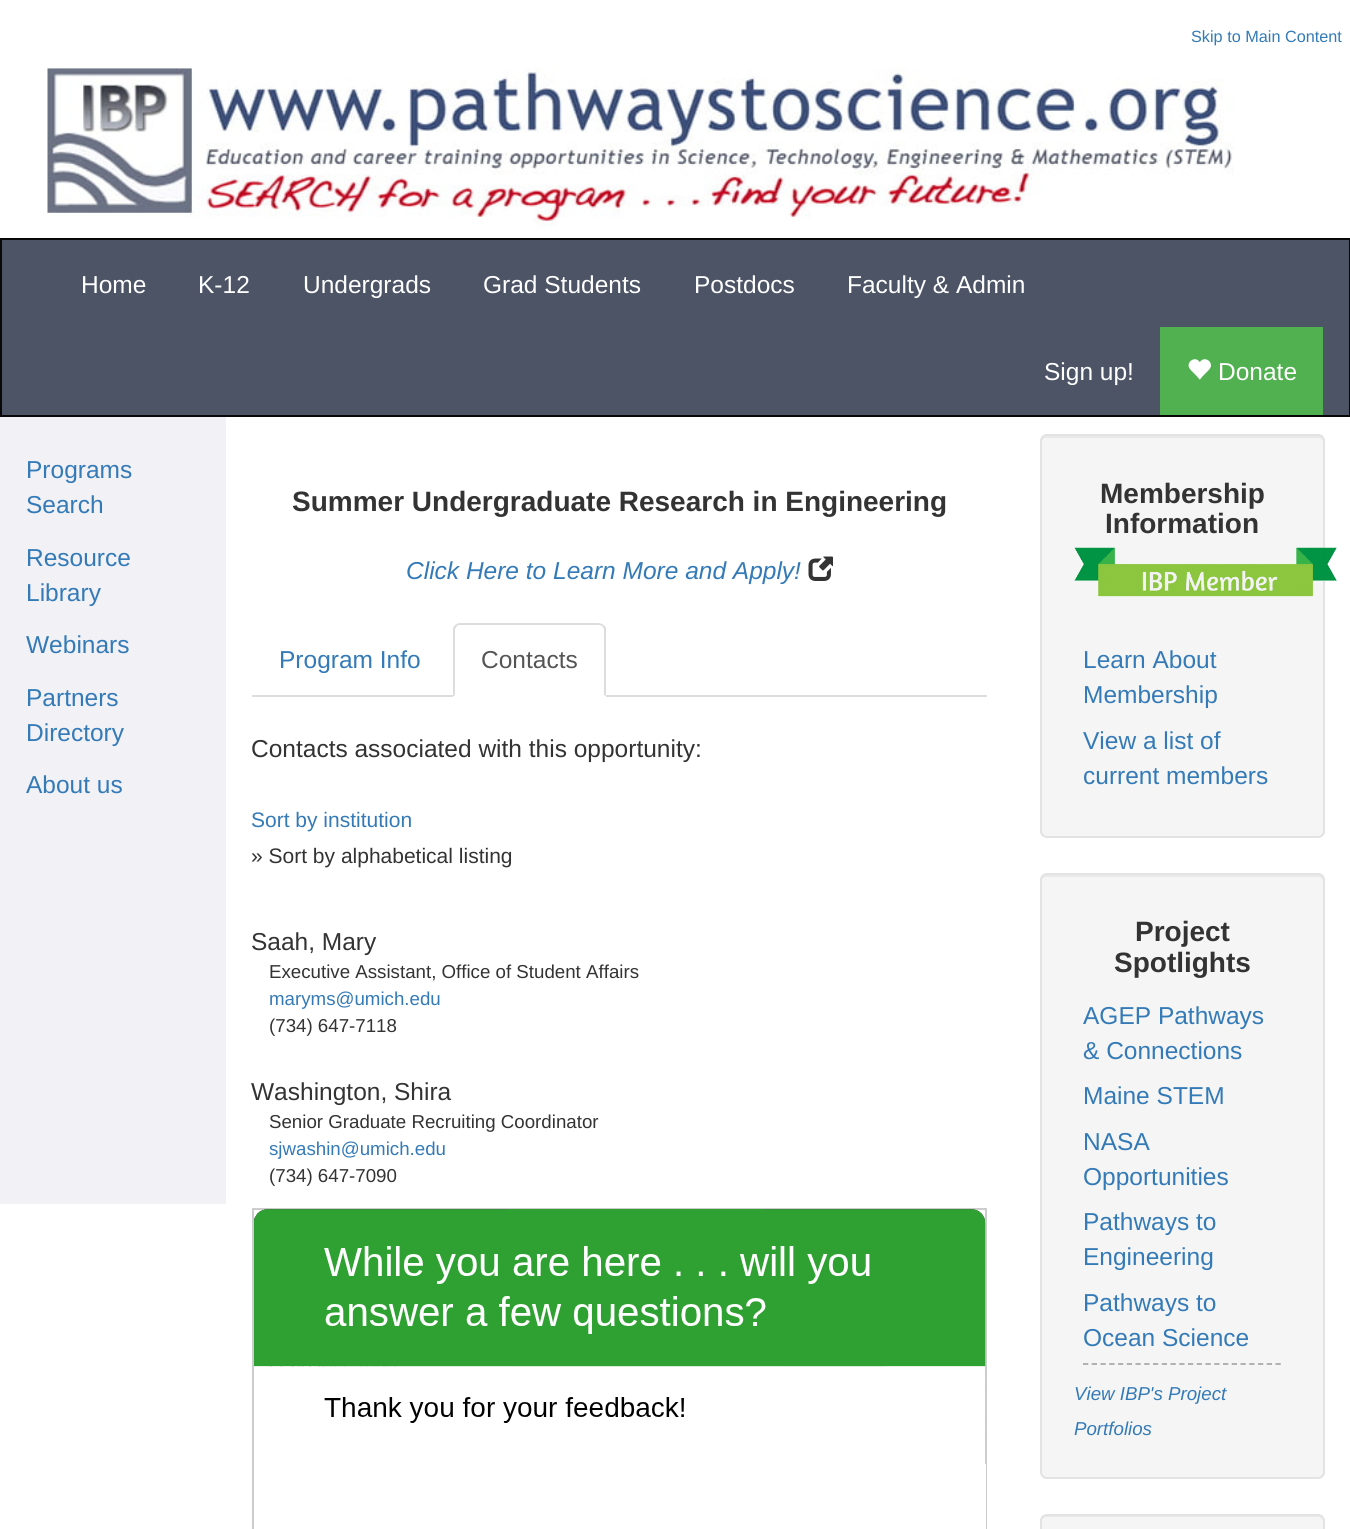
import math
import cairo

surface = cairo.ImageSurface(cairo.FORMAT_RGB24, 1350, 1529)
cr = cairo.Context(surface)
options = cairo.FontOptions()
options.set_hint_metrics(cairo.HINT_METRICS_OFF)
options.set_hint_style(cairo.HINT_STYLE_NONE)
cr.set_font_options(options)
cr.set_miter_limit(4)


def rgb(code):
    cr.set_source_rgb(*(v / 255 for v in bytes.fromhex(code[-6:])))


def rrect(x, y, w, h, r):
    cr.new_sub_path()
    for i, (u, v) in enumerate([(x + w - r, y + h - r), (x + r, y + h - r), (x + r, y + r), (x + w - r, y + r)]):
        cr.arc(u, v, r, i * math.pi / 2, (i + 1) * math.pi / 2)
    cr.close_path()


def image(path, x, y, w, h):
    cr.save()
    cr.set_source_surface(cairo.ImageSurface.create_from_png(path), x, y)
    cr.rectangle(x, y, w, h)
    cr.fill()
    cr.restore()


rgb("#ffffff")
cr.paint()
image("img/1.png", 47, 68, 1187, 160)
rgb("#4c5466")
cr.rectangle(1, 239, 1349, 177)
cr.fill_preserve()
rgb("#080808")
cr.stroke()
rgb("#51b050")
cr.rectangle(1160, 327, 163, 88)
cr.fill()
image("img/2.png", 1188, 359, 23, 21)
rgb("#f1f1f6")
cr.rectangle(0, 417, 226, 787)
cr.fill()
image("img/3.png", 808, 556, 25, 25)
rgb("#dddddd")
cr.rectangle(252, 695, 735, 2)
cr.fill()
rgb("#ffffff")
cr.new_path()
cr.move_to(460, 623)
cr.line_to(599, 623)
cr.curve_to(603, 623, 606, 626, 606, 630)
cr.line_to(606, 697)
cr.line_to(453, 697)
cr.line_to(453, 630)
cr.curve_to(453, 626, 456, 623, 460, 623)
cr.close_path()
cr.fill()
rgb("#dddddd")
cr.new_path()
cr.move_to(460, 623)
cr.curve_to(458, 623, 456, 624, 455, 625)
cr.line_to(457, 626)
cr.line_to(459, 625)
cr.line_to(599, 625)
cr.line_to(602, 626)
cr.line_to(604, 625)
cr.curve_to(602, 624, 600, 623, 598, 623)
cr.close_path()
cr.fill()
cr.new_path()
cr.move_to(606, 696)
cr.line_to(604, 695)
cr.line_to(604, 629)
cr.line_to(602, 626)
cr.line_to(604, 625)
cr.line_to(606, 628)
cr.close_path()
cr.fill()
cr.new_path()
cr.move_to(453, 628)
cr.line_to(455, 625)
cr.line_to(457, 626)
cr.line_to(455, 629)
cr.line_to(455, 695)
cr.line_to(454, 696)
cr.line_to(453, 696)
cr.close_path()
cr.fill()
cr.rectangle(253, 1209, 733, 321)
rgb("#cccccc")
cr.stroke()
image("img/4.png", 254, 1209, 732, 320)
rgb("#f5f5f5")
rrect(1040, 434, 285, 404, 7)
cr.fill()
rgb("#e9e9e9")
cr.new_path()
cr.move_to(1046, 438)
cr.line_to(1318, 438)
cr.curve_to(1321, 438, 1323, 440, 1323, 443)
cr.line_to(1323, 441)
cr.curve_to(1323, 438, 1321, 436, 1318, 436)
cr.line_to(1046, 436)
cr.curve_to(1043, 436, 1041, 438, 1041, 441)
cr.line_to(1041, 443)
cr.curve_to(1041, 440, 1044, 438, 1046, 438)
cr.close_path()
cr.fill()
rrect(1041, 435, 283, 402, 6)
rgb("#e3e3e3")
cr.stroke()
image("img/5.png", 1074, 547, 263, 50)
rgb("#f5f5f5")
rrect(1040, 873, 285, 606, 7)
cr.fill()
rgb("#e9e9e9")
cr.new_path()
cr.move_to(1046, 877)
cr.line_to(1318, 877)
cr.curve_to(1321, 877, 1323, 879, 1323, 882)
cr.line_to(1323, 880)
cr.curve_to(1323, 877, 1321, 875, 1318, 875)
cr.line_to(1046, 875)
cr.curve_to(1043, 875, 1041, 877, 1041, 880)
cr.line_to(1041, 882)
cr.curve_to(1041, 879, 1044, 877, 1046, 877)
cr.close_path()
cr.fill()
rrect(1041, 874, 283, 604, 6)
rgb("#e3e3e3")
cr.stroke()
cr.new_path()
cr.move_to(1083, 1364)
cr.line_to(1281, 1364)
rgb("#ababab")
cr.set_line_width(1.8)
cr.set_dash([5.25, 3.5])
cr.stroke()
rgb("#f5f5f5")
rrect(1040, 1514, 285, 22, 7)
cr.fill()
rgb("#e9e9e9")
cr.new_path()
cr.move_to(1046, 1517)
cr.line_to(1318, 1517)
cr.curve_to(1321, 1517, 1323, 1520, 1323, 1522)
cr.line_to(1323, 1521)
cr.curve_to(1323, 1518, 1321, 1516, 1318, 1516)
cr.line_to(1046, 1516)
cr.curve_to(1043, 1516, 1041, 1518, 1041, 1521)
cr.line_to(1041, 1522)
cr.curve_to(1041, 1520, 1044, 1517, 1046, 1517)
cr.close_path()
cr.fill()
rrect(1041, 1515, 283, 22, 6)
rgb("#e3e3e3")
cr.set_line_width(2)
cr.set_dash([])
cr.stroke()
cr.select_font_face("Liberation Sans")
cr.set_font_size(16.25)
rgb("#337ab7")
cr.move_to(1191, 42)
cr.show_text("Skip to Main Content")
cr.set_font_size(24.5)
rgb("#ffffff")
for x, y, s in [
    (81, 293, "Home"),
    (198, 293, "K-12"),
    (303, 293, "Undergrads"),
    (483, 293, "Grad Students"),
    (694, 293, "Postdocs"),
    (847, 293, "Faculty & Admin"),
    (1044, 380, "Sign up!"),
    (1218, 380, "Donate"),
]:
    cr.move_to(x, y)
    cr.show_text(s)
rgb("#337ab7")
for x, y, s in [
    (26, 478, "Programs"),
    (26, 513, "Search"),
    (26, 566, "Resource"),
    (26, 601, "Library"),
    (26, 653, "Webinars"),
    (26, 706, "Partners"),
    (26, 741, "Directory"),
    (26, 793, "About us"),
]:
    cr.move_to(x, y)
    cr.show_text(s)
cr.select_font_face("Liberation Sans", cairo.FONT_SLANT_NORMAL, cairo.FONT_WEIGHT_BOLD)
cr.set_font_size(28)
rgb("#333333")
cr.move_to(292, 511)
cr.show_text("Summer Undergraduate Research in Engineering")
cr.select_font_face("Liberation Sans", cairo.FONT_SLANT_ITALIC)
cr.set_font_size(24.5)
rgb("#337ab7")
cr.move_to(406, 579)
cr.show_text("Click Here to Learn More and Apply!")
cr.select_font_face("Liberation Sans")
cr.move_to(279, 668)
cr.show_text("Program Info")
rgb("#555555")
cr.move_to(481, 668)
cr.show_text("Contacts")
rgb("#333333")
cr.move_to(251, 757)
cr.show_text("Contacts associated with this opportunity:")
cr.set_font_size(21)
rgb("#337ab7")
cr.move_to(251, 827)
cr.show_text("Sort by institution")
rgb("#333333")
cr.move_to(251, 863)
cr.show_text("» Sort by alphabetical listing")
cr.set_font_size(24.5)
cr.move_to(251, 950)
cr.show_text("Saah, Mary")
cr.set_font_size(18.7)
cr.move_to(269, 978)
cr.show_text("Executive Assistant, Office of Student Affairs")
rgb("#337ab7")
cr.move_to(269, 1005)
cr.show_text("maryms@umich.edu")
rgb("#333333")
cr.move_to(269, 1032)
cr.show_text("(734) 647-7118")
cr.set_font_size(24.5)
cr.move_to(251, 1100)
cr.show_text("Washington, Shira")
cr.set_font_size(18.7)
cr.move_to(269, 1128)
cr.show_text("Senior Graduate Recruiting Coordinator")
rgb("#337ab7")
cr.move_to(269, 1155)
cr.show_text("sjwashin@umich.edu")
rgb("#333333")
cr.move_to(269, 1182)
cr.show_text("(734) 647-7090")
cr.select_font_face("Liberation Sans", cairo.FONT_SLANT_NORMAL, cairo.FONT_WEIGHT_BOLD)
cr.set_font_size(28)
cr.move_to(1100, 503)
cr.show_text("Membership")
cr.move_to(1105, 533)
cr.show_text("Information")
cr.select_font_face("Liberation Sans")
cr.set_font_size(24.5)
rgb("#337ab7")
for x, y, s in [
    (1083, 668, "Learn About"),
    (1083, 703, "Membership"),
    (1083, 749, "View a list of"),
    (1083, 784, "current members"),
]:
    cr.move_to(x, y)
    cr.show_text(s)
cr.select_font_face("Liberation Sans", cairo.FONT_SLANT_NORMAL, cairo.FONT_WEIGHT_BOLD)
cr.set_font_size(28)
rgb("#333333")
cr.move_to(1135, 941)
cr.show_text("Project")
cr.move_to(1114, 972)
cr.show_text("Spotlights")
cr.select_font_face("Liberation Sans")
cr.set_font_size(24.5)
rgb("#337ab7")
for x, y, s in [
    (1083, 1024, "AGEP Pathways"),
    (1083, 1059, "& Connections"),
    (1083, 1104, "Maine STEM"),
    (1083, 1150, "NASA"),
    (1083, 1185, "Opportunities"),
    (1083, 1230, "Pathways to"),
    (1083, 1265, "Engineering"),
    (1083, 1311, "Pathways to"),
    (1083, 1346, "Ocean Science"),
]:
    cr.move_to(x, y)
    cr.show_text(s)
cr.select_font_face("Liberation Sans", cairo.FONT_SLANT_ITALIC)
cr.set_font_size(18.7)
cr.move_to(1074, 1400)
cr.show_text("View IBP's Project")
cr.move_to(1074, 1435)
cr.show_text("Portfolios")
surface.write_to_png("page.png")
